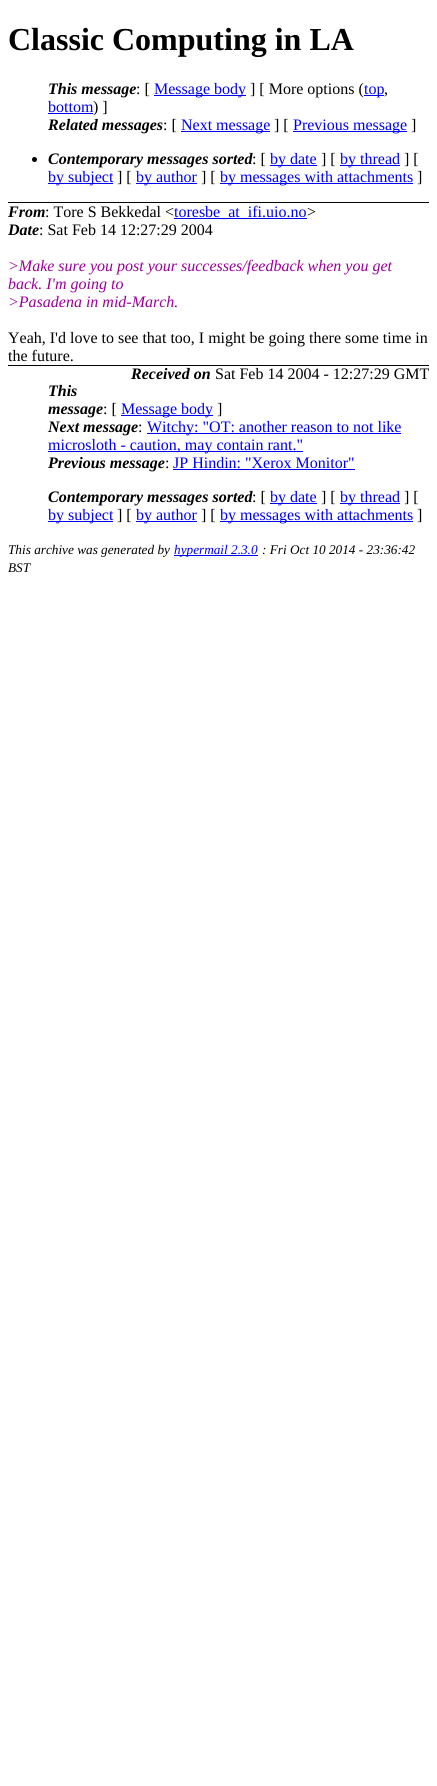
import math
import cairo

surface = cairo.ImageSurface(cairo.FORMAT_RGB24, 437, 1786)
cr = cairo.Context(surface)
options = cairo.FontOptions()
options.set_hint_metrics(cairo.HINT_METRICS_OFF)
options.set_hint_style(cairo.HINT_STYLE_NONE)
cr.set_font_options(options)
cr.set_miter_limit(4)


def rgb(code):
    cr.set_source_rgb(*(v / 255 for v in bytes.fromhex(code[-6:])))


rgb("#ffffff")
cr.paint()
for x, y, w, h, color in [
    (8, 202, 421, 1, "#000000"),
    (154, 95, 92, 1, "#0000ee"),
    (364, 95, 20, 1, "#0000ee"),
    (48, 113, 45, 1, "#0000ee"),
    (181, 131, 89, 1, "#0000ee"),
    (293, 131, 114, 1, "#0000ee"),
]:
    rgb(color)
    cr.rectangle(x, y, w, h)
    cr.fill()
rgb("#000000")
cr.arc(34.5, 159.5, 2.5, 0, 2 * math.pi)
cr.fill()
for x, y, w, h, color in [
    (270, 165, 47, 1, "#0000ee"),
    (340, 165, 60, 1, "#0000ee"),
    (48, 183, 65, 1, "#0000ee"),
    (136, 183, 61, 1, "#0000ee"),
    (220, 183, 193, 1, "#0000ee"),
    (174, 218, 133, 1, "#0000ee"),
    (8, 365, 421, 1, "#000000"),
    (121, 415, 92, 1, "#0000ee"),
    (147, 433, 254, 1, "#0000ee"),
    (48, 451, 255, 1, "#0000ee"),
    (173, 469, 182, 1, "#0000ee"),
    (270, 503, 47, 1, "#0000ee"),
    (340, 503, 60, 1, "#0000ee"),
    (48, 521, 65, 1, "#0000ee"),
    (136, 521, 61, 1, "#0000ee"),
    (220, 521, 193, 1, "#0000ee"),
    (174, 555, 84, 1, "#0000ee"),
]:
    rgb(color)
    cr.rectangle(x, y, w, h)
    cr.fill()
cr.select_font_face("Liberation Serif", cairo.FONT_SLANT_NORMAL, cairo.FONT_WEIGHT_BOLD)
cr.set_font_size(32)
rgb("#000000")
cr.move_to(8, 50)
cr.show_text("Classic Computing in LA")
cr.select_font_face("Liberation Serif", cairo.FONT_SLANT_ITALIC, cairo.FONT_WEIGHT_BOLD)
cr.set_font_size(16)
cr.move_to(48, 94)
cr.show_text("This message")
cr.select_font_face("Liberation Serif")
cr.move_to(136, 94)
cr.show_text(": [")
rgb("#0000ee")
cr.move_to(154, 94)
cr.show_text("Message body")
rgb("#000000")
cr.move_to(250, 94)
cr.show_text("] [ More options (")
rgb("#0000ee")
cr.move_to(364, 94)
cr.show_text("top")
rgb("#000000")
cr.move_to(384, 94)
cr.show_text(",")
rgb("#0000ee")
cr.move_to(48, 112)
cr.show_text("bottom")
rgb("#000000")
cr.move_to(93, 112)
cr.show_text(") ]")
cr.select_font_face("Liberation Serif", cairo.FONT_SLANT_ITALIC, cairo.FONT_WEIGHT_BOLD)
cr.move_to(48, 130)
cr.show_text("Related messages")
cr.select_font_face("Liberation Serif")
cr.move_to(163, 130)
cr.show_text(": [")
rgb("#0000ee")
cr.move_to(181, 130)
cr.show_text("Next message")
rgb("#000000")
cr.move_to(274, 130)
cr.show_text("] [")
rgb("#0000ee")
cr.move_to(293, 130)
cr.show_text("Previous message")
rgb("#000000")
cr.move_to(411, 130)
cr.show_text("]")
cr.select_font_face("Liberation Serif", cairo.FONT_SLANT_ITALIC, cairo.FONT_WEIGHT_BOLD)
cr.move_to(48, 164)
cr.show_text("Contemporary messages sorted")
cr.select_font_face("Liberation Serif")
cr.move_to(252, 164)
cr.show_text(": [")
rgb("#0000ee")
cr.move_to(270, 164)
cr.show_text("by date")
rgb("#000000")
cr.move_to(321, 164)
cr.show_text("] [")
rgb("#0000ee")
cr.move_to(340, 164)
cr.show_text("by thread")
rgb("#000000")
cr.move_to(404, 164)
cr.show_text("] [")
rgb("#0000ee")
cr.move_to(48, 182)
cr.show_text("by subject")
rgb("#000000")
cr.move_to(117, 182)
cr.show_text("] [")
rgb("#0000ee")
cr.move_to(136, 182)
cr.show_text("by author")
rgb("#000000")
cr.move_to(201, 182)
cr.show_text("] [")
rgb("#0000ee")
cr.move_to(220, 182)
cr.show_text("by messages with attachments")
rgb("#000000")
cr.move_to(417, 182)
cr.show_text("]")
cr.select_font_face("Liberation Serif", cairo.FONT_SLANT_ITALIC, cairo.FONT_WEIGHT_BOLD)
cr.move_to(8, 217)
cr.show_text("From")
cr.select_font_face("Liberation Serif")
cr.move_to(45, 217)
cr.show_text(": Tore S Bekkedal <")
rgb("#0000ee")
cr.move_to(174, 217)
cr.show_text("toresbe_at_ifi.uio.no")
rgb("#000000")
cr.move_to(307, 217)
cr.show_text(">")
cr.select_font_face("Liberation Serif", cairo.FONT_SLANT_ITALIC, cairo.FONT_WEIGHT_BOLD)
cr.move_to(8, 235)
cr.show_text("Date")
cr.select_font_face("Liberation Serif")
cr.move_to(39, 235)
cr.show_text(": Sat Feb 14 12:27:29 2004")
cr.select_font_face("Liberation Serif", cairo.FONT_SLANT_ITALIC)
rgb("#990099")
for x, y, s in [
    (8, 271, ">Make sure you post your successes/feedback when you get"),
    (8, 289, "back. I'm going to"),
    (8, 307, ">Pasadena in mid-March."),
]:
    cr.move_to(x, y)
    cr.show_text(s)
cr.select_font_face("Liberation Serif")
rgb("#000000")
cr.move_to(8, 343)
cr.show_text("Yeah, I'd love to see that too, I might be going there some time in")
cr.move_to(8, 361)
cr.show_text("the future.")
cr.select_font_face("Liberation Serif", cairo.FONT_SLANT_ITALIC, cairo.FONT_WEIGHT_BOLD)
cr.move_to(131, 379)
cr.show_text("Received on")
cr.select_font_face("Liberation Serif")
cr.move_to(215, 379)
cr.show_text("Sat Feb 14 2004 - 12:27:29 GMT")
cr.select_font_face("Liberation Serif", cairo.FONT_SLANT_ITALIC, cairo.FONT_WEIGHT_BOLD)
cr.move_to(48, 396)
cr.show_text("This")
cr.move_to(48, 414)
cr.show_text("message")
cr.select_font_face("Liberation Serif")
cr.move_to(103, 414)
cr.show_text(": [")
rgb("#0000ee")
cr.move_to(121, 414)
cr.show_text("Message body")
rgb("#000000")
cr.move_to(217, 414)
cr.show_text("]")
cr.select_font_face("Liberation Serif", cairo.FONT_SLANT_ITALIC, cairo.FONT_WEIGHT_BOLD)
cr.move_to(48, 432)
cr.show_text("Next message")
cr.select_font_face("Liberation Serif")
cr.move_to(138, 432)
cr.show_text(":")
rgb("#0000ee")
cr.move_to(147, 432)
cr.show_text("Witchy: \"OT: another reason to not like")
cr.move_to(48, 450)
cr.show_text("microsloth - caution, may contain rant.\"")
cr.select_font_face("Liberation Serif", cairo.FONT_SLANT_ITALIC, cairo.FONT_WEIGHT_BOLD)
rgb("#000000")
cr.move_to(48, 468)
cr.show_text("Previous message")
cr.select_font_face("Liberation Serif")
cr.move_to(165, 468)
cr.show_text(":")
rgb("#0000ee")
cr.move_to(173, 468)
cr.show_text("JP Hindin: \"Xerox Monitor\"")
cr.select_font_face("Liberation Serif", cairo.FONT_SLANT_ITALIC, cairo.FONT_WEIGHT_BOLD)
rgb("#000000")
cr.move_to(48, 502)
cr.show_text("Contemporary messages sorted")
cr.select_font_face("Liberation Serif")
cr.move_to(252, 502)
cr.show_text(": [")
rgb("#0000ee")
cr.move_to(270, 502)
cr.show_text("by date")
rgb("#000000")
cr.move_to(321, 502)
cr.show_text("] [")
rgb("#0000ee")
cr.move_to(340, 502)
cr.show_text("by thread")
rgb("#000000")
cr.move_to(404, 502)
cr.show_text("] [")
rgb("#0000ee")
cr.move_to(48, 520)
cr.show_text("by subject")
rgb("#000000")
cr.move_to(117, 520)
cr.show_text("] [")
rgb("#0000ee")
cr.move_to(136, 520)
cr.show_text("by author")
rgb("#000000")
cr.move_to(201, 520)
cr.show_text("] [")
rgb("#0000ee")
cr.move_to(220, 520)
cr.show_text("by messages with attachments")
rgb("#000000")
cr.move_to(417, 520)
cr.show_text("]")
cr.select_font_face("Liberation Serif", cairo.FONT_SLANT_ITALIC)
cr.set_font_size(13.25)
cr.move_to(8, 554)
cr.show_text("This archive was generated by")
rgb("#0000ee")
cr.move_to(174, 554)
cr.show_text("hypermail 2.3.0")
rgb("#000000")
cr.move_to(262, 554)
cr.show_text(": Fri Oct 10 2014 - 23:36:42")
cr.move_to(8, 572)
cr.show_text("BST")
surface.write_to_png("page.png")
